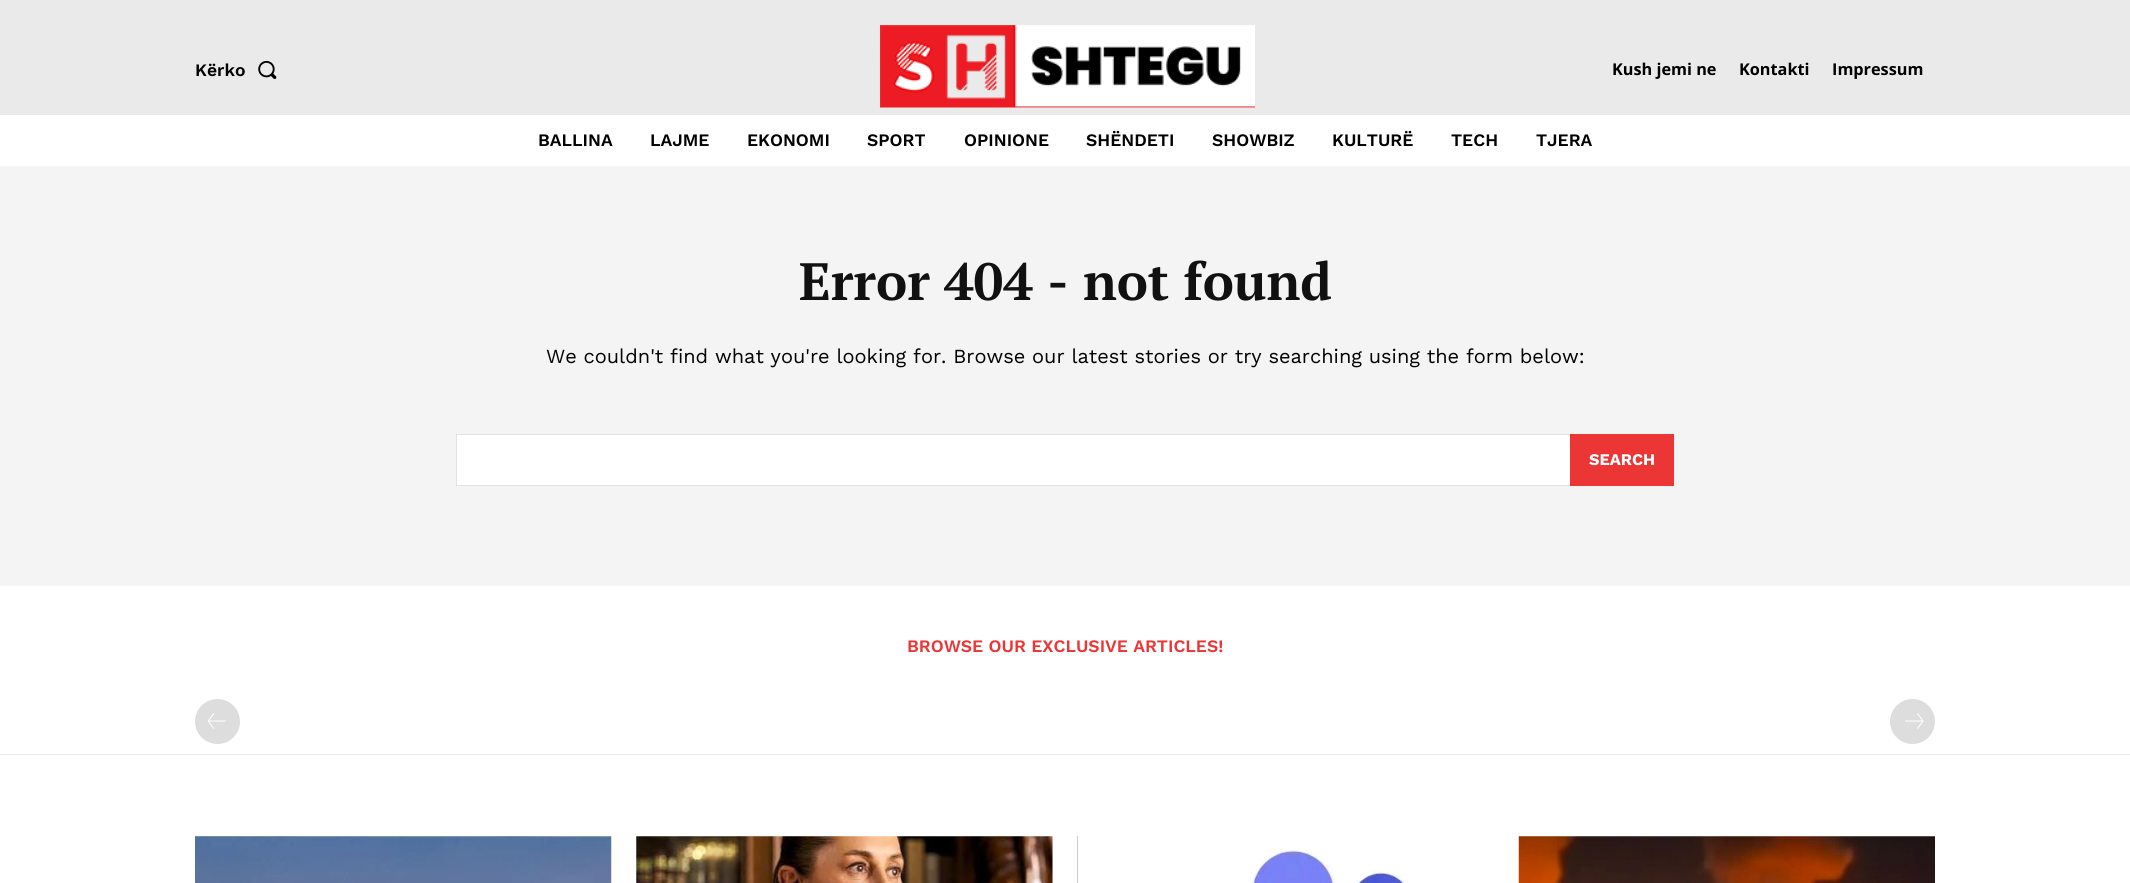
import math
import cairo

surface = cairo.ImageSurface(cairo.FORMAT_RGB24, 2130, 883)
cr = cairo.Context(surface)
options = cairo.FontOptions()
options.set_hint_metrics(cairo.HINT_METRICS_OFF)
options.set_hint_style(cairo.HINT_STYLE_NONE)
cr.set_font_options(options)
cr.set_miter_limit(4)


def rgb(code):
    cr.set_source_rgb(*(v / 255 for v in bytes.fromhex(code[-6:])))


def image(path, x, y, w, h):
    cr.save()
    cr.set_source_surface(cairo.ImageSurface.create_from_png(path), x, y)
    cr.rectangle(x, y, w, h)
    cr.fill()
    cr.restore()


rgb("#ffffff")
cr.paint()
rgb("#eaeaea")
cr.rectangle(0, 0, 2130, 115)
cr.fill()
image("img/1.png", 258, 60, 19, 19)
image("img/2.png", 880, 25, 375, 83)
rgb("#f4f4f4")
cr.rectangle(0, 166, 2130, 420)
cr.fill()
rgb("#ffffff")
cr.rectangle(457, 435, 1113, 50)
cr.fill()
cr.rectangle(456.5, 434.5, 1217, 51)
rgb("#e1e1e1")
cr.set_line_width(1)
cr.stroke()
rgb("#ec3535")
cr.rectangle(1570, 434, 104, 52)
cr.fill()
rgb("#dddddd")
cr.arc(217.5, 721.5, 22.5, 0, 2 * math.pi)
cr.fill()
image("img/3.png", 208, 713, 18, 16)
cr.arc(1912.5, 721.5, 22.5, 0, 2 * math.pi)
cr.fill()
image("img/4.png", 1905, 713, 19, 16)
rgb("#eaeaea")
cr.rectangle(0, 754, 2130, 1)
cr.fill()
image("img/5.png", 195, 836, 417, 47)
image("img/6.png", 636, 836, 417, 47)
image("img/7.png", 1077, 836, 331, 47)
image("img/8.png", 1518, 836, 417, 47)
cr.select_font_face("Work Sans SemiBold")
cr.set_font_size(17.5)
rgb("#000000")
cr.move_to(195, 76)
cr.show_text("Kërko")
cr.select_font_face("Open Sans", cairo.FONT_SLANT_NORMAL, cairo.FONT_WEIGHT_BOLD)
cr.set_font_size(16.25)
for x, y, s in [
    (1612, 75, "Kush jemi ne"),
    (1739, 75, "Kontakti"),
    (1832, 75, "Impressum"),
]:
    cr.move_to(x, y)
    cr.show_text(s)
cr.select_font_face("Work Sans SemiBold")
cr.set_font_size(17.5)
for x, y, s in [
    (538, 146, "BALLINA"),
    (650, 146, "LAJME"),
    (747, 146, "EKONOMI"),
    (867, 146, "SPORT"),
    (964, 146, "OPINIONE"),
    (1086, 146, "SHËNDETI"),
    (1212, 146, "SHOWBIZ"),
    (1332, 146, "KULTURË"),
    (1451, 146, "TECH"),
    (1536, 146, "TJERA"),
]:
    cr.move_to(x, y)
    cr.show_text(s)
cr.select_font_face("PT Serif", cairo.FONT_SLANT_NORMAL, cairo.FONT_WEIGHT_BOLD)
cr.set_font_size(52.5)
rgb("#111111")
cr.move_to(799, 300)
cr.show_text("Error 404 - not found")
cr.select_font_face("Work Sans")
cr.set_font_size(20)
rgb("#000000")
cr.move_to(546, 363)
cr.show_text("We couldn't find what you're looking for. Browse our latest stories or try searching using the form below:")
cr.select_font_face("Work Sans", cairo.FONT_SLANT_NORMAL, cairo.FONT_WEIGHT_BOLD)
cr.set_font_size(16.25)
rgb("#ffffff")
cr.move_to(1589, 465)
cr.show_text("SEARCH")
cr.select_font_face("Work Sans SemiBold")
cr.set_font_size(17.5)
rgb("#ec3535")
cr.move_to(907, 652)
cr.show_text("BROWSE OUR EXCLUSIVE ARTICLES!")
surface.write_to_png("page.png")
